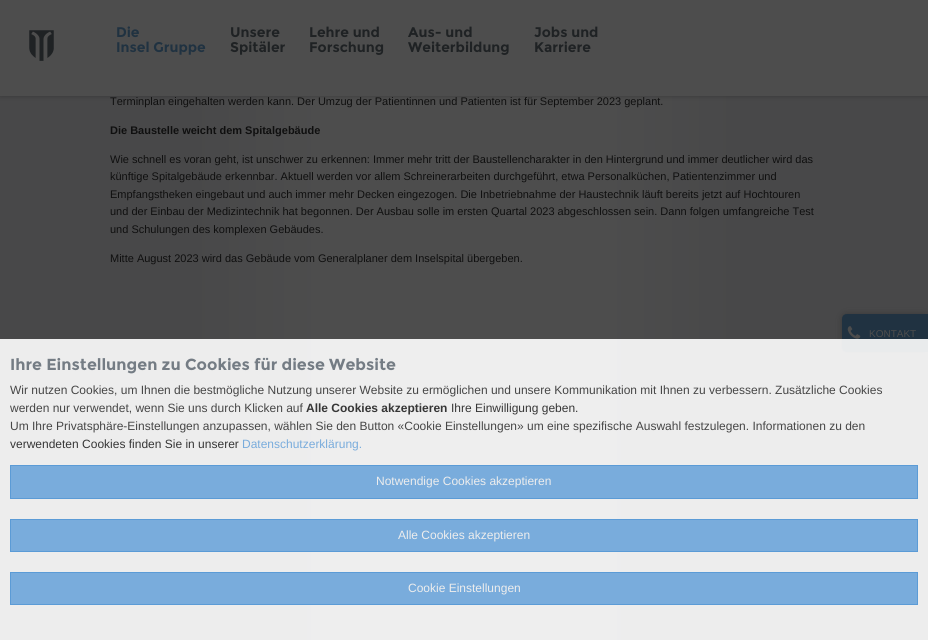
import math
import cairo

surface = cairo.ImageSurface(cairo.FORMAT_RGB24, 928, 640)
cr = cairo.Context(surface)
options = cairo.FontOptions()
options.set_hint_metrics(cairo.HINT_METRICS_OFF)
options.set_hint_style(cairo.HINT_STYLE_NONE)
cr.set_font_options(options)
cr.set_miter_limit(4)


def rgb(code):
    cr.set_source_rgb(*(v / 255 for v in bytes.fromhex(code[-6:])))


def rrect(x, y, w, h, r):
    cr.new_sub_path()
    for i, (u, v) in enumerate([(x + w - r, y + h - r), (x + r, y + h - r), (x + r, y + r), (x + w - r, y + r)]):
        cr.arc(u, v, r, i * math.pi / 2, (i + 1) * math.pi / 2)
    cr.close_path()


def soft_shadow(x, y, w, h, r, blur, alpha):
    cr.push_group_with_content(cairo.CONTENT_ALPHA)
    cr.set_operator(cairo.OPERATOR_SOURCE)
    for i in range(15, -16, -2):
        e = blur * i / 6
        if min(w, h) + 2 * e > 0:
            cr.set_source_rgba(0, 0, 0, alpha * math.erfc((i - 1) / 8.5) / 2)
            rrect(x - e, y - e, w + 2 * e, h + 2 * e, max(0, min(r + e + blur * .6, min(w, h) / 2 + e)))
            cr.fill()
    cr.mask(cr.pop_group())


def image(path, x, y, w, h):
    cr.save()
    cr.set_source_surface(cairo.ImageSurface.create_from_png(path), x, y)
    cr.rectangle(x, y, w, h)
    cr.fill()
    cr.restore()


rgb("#ffffff")
cr.paint()
gradient = cairo.LinearGradient(928, 368, 0, 368)
gradient.add_color_stop_rgba(0, 0.282, 0.282, 0.286, 1)
gradient.add_color_stop_rgba(0.2, 0.282, 0.282, 0.286, 1)
gradient.add_color_stop_rgba(0.35, 0.302, 0.302, 0.302, 1)
gradient.add_color_stop_rgba(0.65, 0.302, 0.302, 0.302, 1)
gradient.add_color_stop_rgba(0.8, 0.282, 0.282, 0.286, 1)
gradient.add_color_stop_rgba(1, 0.282, 0.282, 0.286, 1)
cr.set_source(gradient)
cr.rectangle(0, 96, 928, 544)
cr.fill()
rgb("#000000")
soft_shadow(0, 0, 928, 96, 0, 2.5, 0.25)
rgb("#4d4d4d")
cr.rectangle(0, 0, 928, 96)
cr.fill()
image("img/1.png", 29, 30, 25, 31)
rgb("#1f1f1f")
soft_shadow(841, 313, 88, 40, 6, 3, 0.3)
rgb("#203241")
cr.new_path()
cr.move_to(847, 314)
cr.line_to(928, 314)
cr.line_to(928, 352)
cr.line_to(847, 352)
cr.curve_to(844, 352, 842, 350, 842, 347)
cr.line_to(842, 319)
cr.curve_to(842, 316, 844, 314, 847, 314)
cr.close_path()
cr.fill()
image("img/2.png", 847, 326, 14, 13)
cr.set_source_rgba(1, 1, 1, 0.9)
cr.rectangle(0, 339, 928, 301)
cr.fill()
rgb("#79acdc")
cr.rectangle(10.5, 465.5, 907, 33)
cr.fill_preserve()
rgb("#5b9bd6")
cr.set_line_width(1)
cr.stroke()
rgb("#79acdc")
cr.rectangle(10.5, 519.5, 907, 32)
cr.fill_preserve()
rgb("#5b9bd6")
cr.stroke()
rgb("#79acdc")
cr.rectangle(10.5, 572.5, 907, 32)
cr.fill_preserve()
rgb("#5b9bd6")
cr.stroke()
cr.select_font_face("Montserrat", cairo.FONT_SLANT_NORMAL, cairo.FONT_WEIGHT_BOLD)
cr.set_font_size(14)
rgb("#203241")
cr.move_to(116, 37)
cr.show_text("Die")
cr.move_to(116, 52)
cr.show_text("Insel Gruppe")
rgb("#1f2224")
for x, y, s in [
    (230, 37, "Unsere"),
    (230, 52, "Spitäler"),
    (309, 37, "Lehre und"),
    (309, 52, "Forschung"),
    (408, 37, "Aus- und"),
    (408, 52, "Weiterbildung"),
    (534, 37, "Jobs und"),
    (534, 52, "Karriere"),
]:
    cr.move_to(x, y)
    cr.show_text(s)
cr.select_font_face("Liberation Sans")
cr.set_font_size(11)
rgb("#0f0f0f")
cr.move_to(110, 105)
cr.show_text("Terminplan eingehalten werden kann. Der Umzug der Patientinnen und Patienten ist für September 2023 geplant.")
cr.select_font_face("Liberation Sans", cairo.FONT_SLANT_NORMAL, cairo.FONT_WEIGHT_BOLD)
cr.move_to(110, 134)
cr.show_text("Die Baustelle weicht dem Spitalgebäude")
cr.select_font_face("Liberation Sans")
for x, y, s in [
    (110, 163, "Wie schnell es voran geht, ist unschwer zu erkennen: Immer mehr tritt der Baustellencharakter in den Hintergrund und immer deutlicher wird das"),
    (110, 180, "künftige Spitalgebäude erkennbar. Aktuell werden vor allem Schreinerarbeiten durchgeführt, etwa Personalküchen, Patientenzimmer und"),
    (110, 198, "Empfangstheken eingebaut und auch immer mehr Decken eingezogen. Die Inbetriebnahme der Haustechnik läuft bereits jetzt auf Hochtouren"),
    (110, 215, "und der Einbau der Medizintechnik hat begonnen. Der Ausbau solle im ersten Quartal 2023 abgeschlossen sein. Dann folgen umfangreiche Test"),
    (110, 233, "und Schulungen des komplexen Gebäudes."),
    (110, 262, "Mitte August 2023 wird das Gebäude vom Generalplaner dem Inselspital übergeben."),
]:
    cr.move_to(x, y)
    cr.show_text(s)
cr.set_font_size(10)
rgb("#4d4d4d")
cr.move_to(869, 337)
cr.show_text("KONTAKT")
cr.select_font_face("Montserrat", cairo.FONT_SLANT_NORMAL, cairo.FONT_WEIGHT_BOLD)
cr.set_font_size(16)
rgb("#747c84")
cr.move_to(10, 370)
cr.show_text("Ihre Einstellungen zu Cookies für diese Website")
cr.select_font_face("Liberation Sans")
cr.set_font_size(12)
rgb("#464646")
cr.move_to(10, 394)
cr.show_text("Wir nutzen Cookies, um Ihnen die bestmögliche Nutzung unserer Website zu ermöglichen und unsere Kommunikation mit Ihnen zu verbessern. Zusätzliche Cookies")
cr.move_to(10, 412)
cr.show_text("werden nur verwendet, wenn Sie uns durch Klicken auf")
cr.select_font_face("Liberation Sans", cairo.FONT_SLANT_NORMAL, cairo.FONT_WEIGHT_BOLD)
rgb("#363636")
cr.move_to(306, 412)
cr.show_text("Alle Cookies akzeptieren")
cr.select_font_face("Liberation Sans")
cr.move_to(451, 412)
cr.show_text("Ihre Einwilligung geben.")
rgb("#464646")
cr.move_to(10, 430)
cr.show_text("Um Ihre Privatsphäre-Einstellungen anzupassen, wählen Sie den Button «Cookie Einstellungen» um eine spezifische Auswahl festzulegen. Informationen zu den")
rgb("#363636")
cr.move_to(10, 448)
cr.show_text("verwendeten Cookies finden Sie in unserer")
rgb("#79acdc")
cr.move_to(242, 448)
cr.show_text("Datenschutzerklärung.")
rgb("#ededed")
for x, y, s in [
    (376, 485, "Notwendige Cookies akzeptieren"),
    (398, 539, "Alle Cookies akzeptieren"),
    (408, 592, "Cookie Einstellungen"),
]:
    cr.move_to(x, y)
    cr.show_text(s)
surface.write_to_png("page.png")
